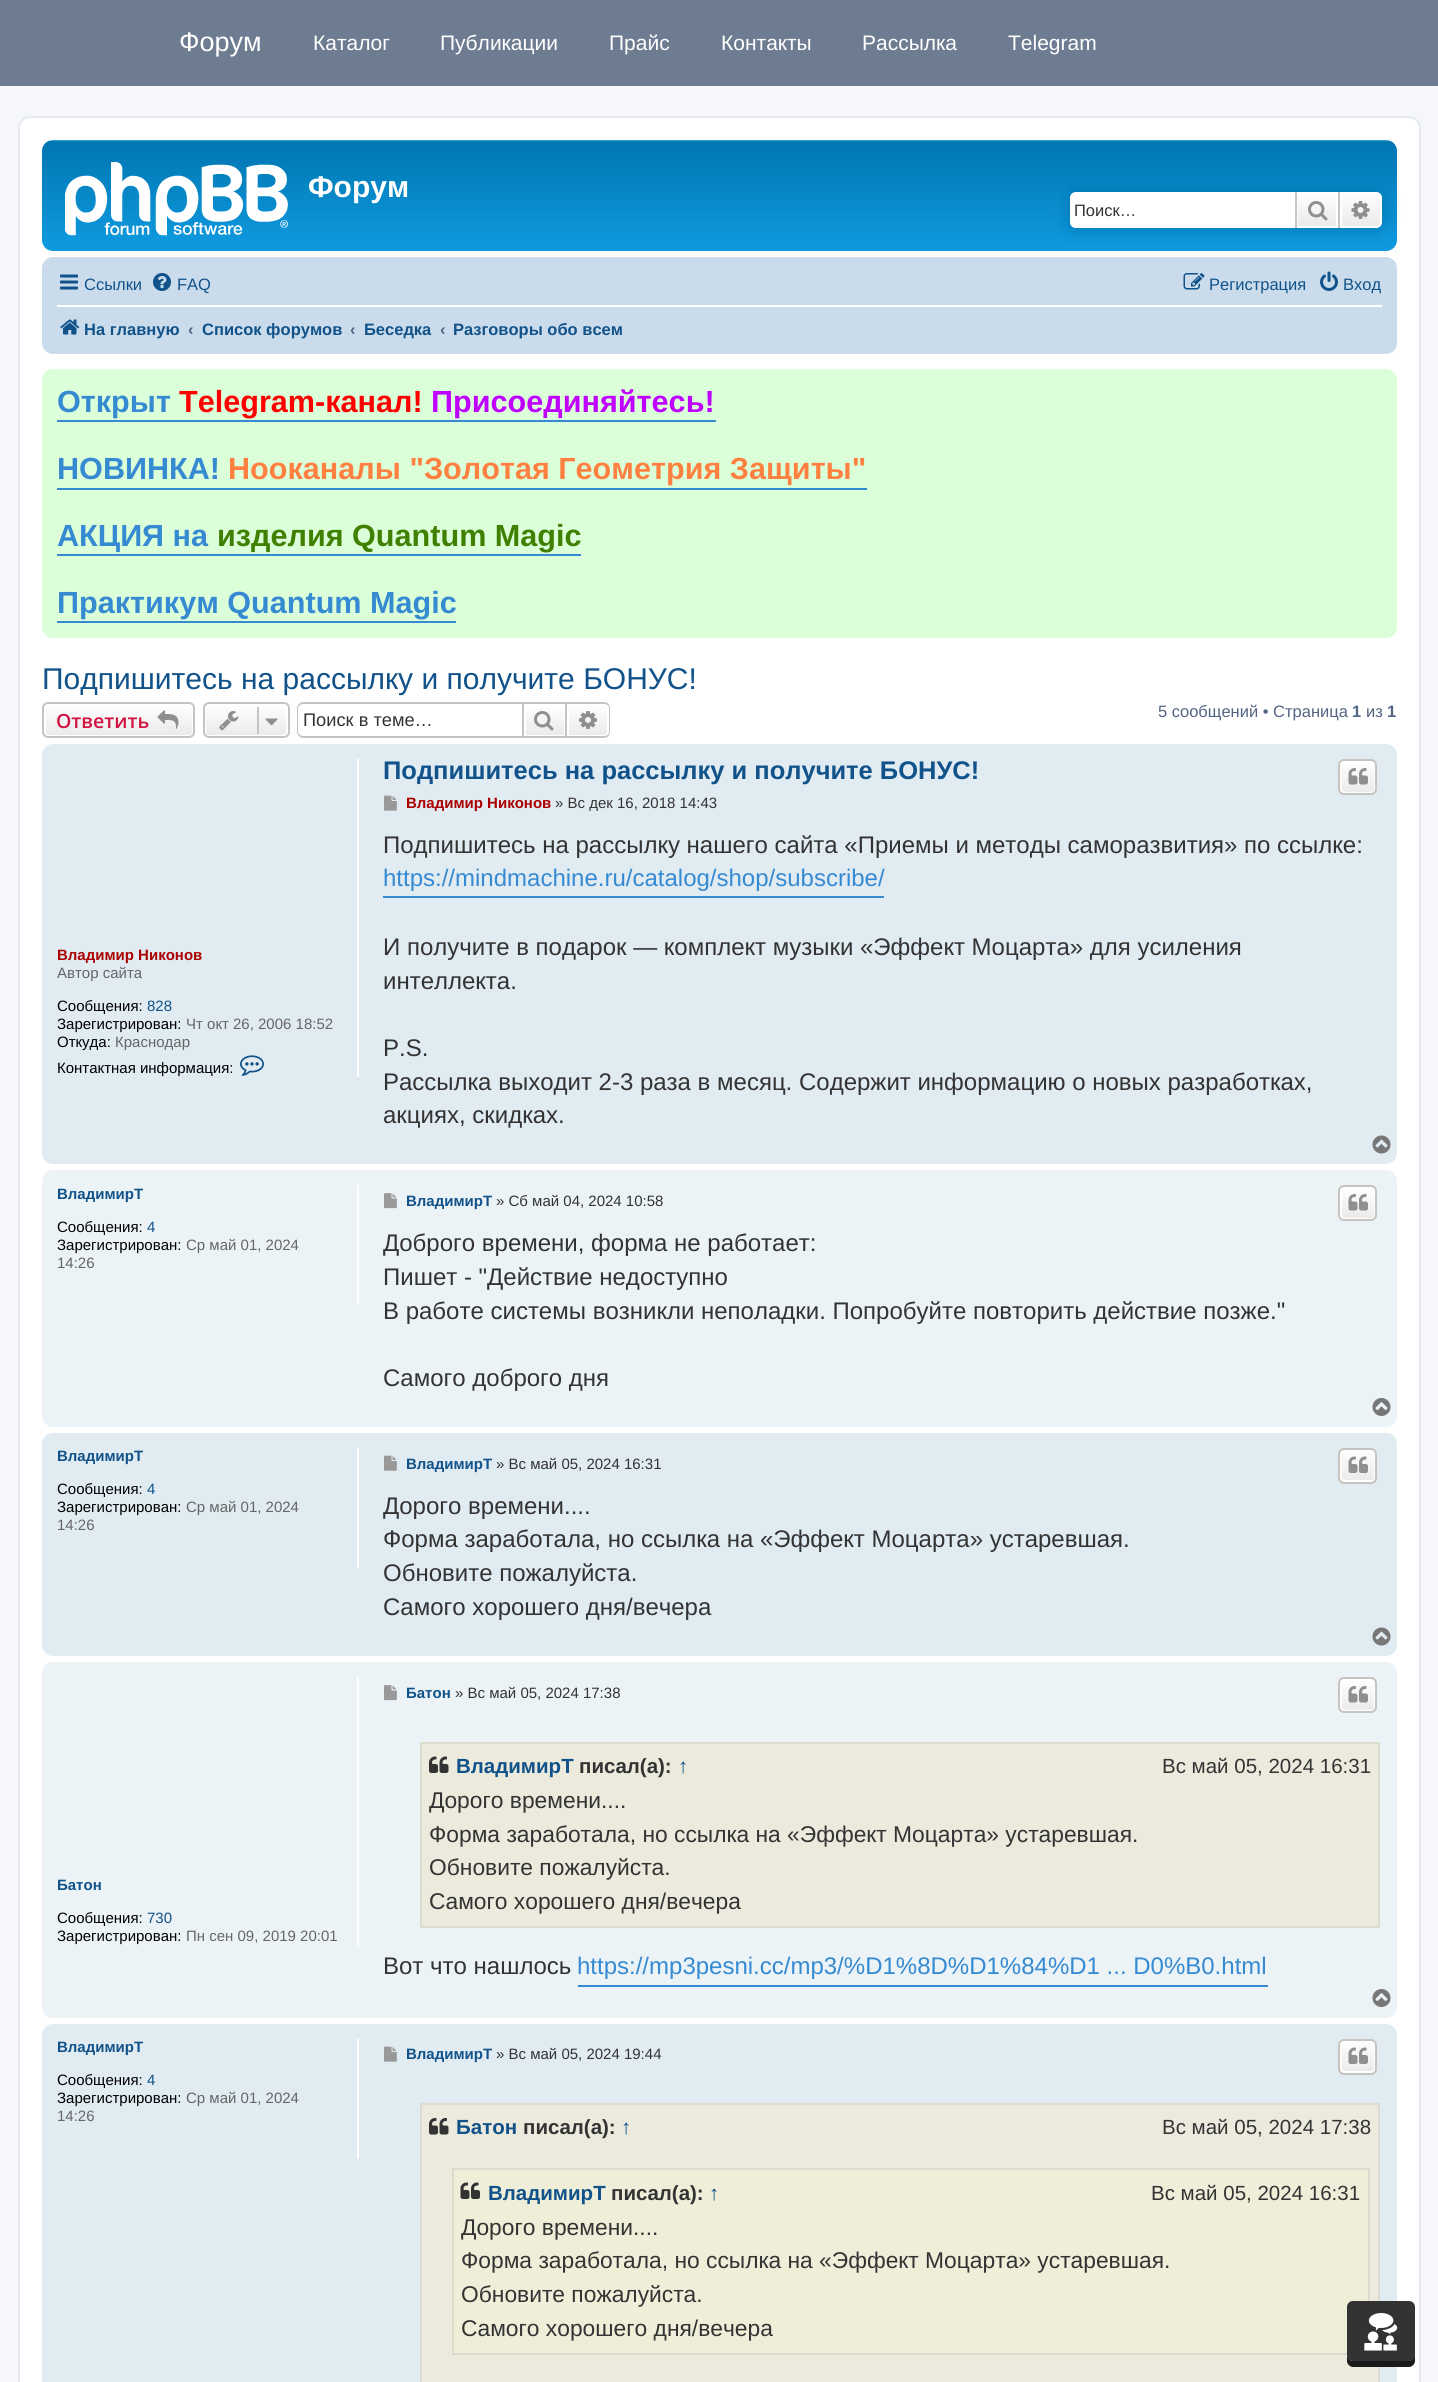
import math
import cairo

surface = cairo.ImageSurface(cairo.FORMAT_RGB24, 1438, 2382)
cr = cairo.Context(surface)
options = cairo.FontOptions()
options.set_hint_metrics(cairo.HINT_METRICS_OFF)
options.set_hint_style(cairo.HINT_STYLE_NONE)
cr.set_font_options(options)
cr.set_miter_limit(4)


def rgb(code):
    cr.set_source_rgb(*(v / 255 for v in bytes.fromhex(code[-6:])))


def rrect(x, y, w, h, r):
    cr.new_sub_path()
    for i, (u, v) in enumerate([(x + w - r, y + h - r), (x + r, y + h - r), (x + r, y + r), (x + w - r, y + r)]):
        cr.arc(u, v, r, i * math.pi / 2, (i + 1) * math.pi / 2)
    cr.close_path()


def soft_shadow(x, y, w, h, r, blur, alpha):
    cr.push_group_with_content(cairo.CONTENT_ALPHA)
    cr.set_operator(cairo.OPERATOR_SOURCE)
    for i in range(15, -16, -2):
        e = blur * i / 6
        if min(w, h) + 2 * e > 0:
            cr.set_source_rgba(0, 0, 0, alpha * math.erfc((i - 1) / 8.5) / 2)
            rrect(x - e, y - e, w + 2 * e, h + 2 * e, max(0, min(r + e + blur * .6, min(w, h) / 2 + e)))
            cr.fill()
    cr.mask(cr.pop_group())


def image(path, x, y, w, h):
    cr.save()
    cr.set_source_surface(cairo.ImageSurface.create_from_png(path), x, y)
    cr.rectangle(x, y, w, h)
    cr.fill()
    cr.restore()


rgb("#f5f7fa")
cr.paint()
rgb("#6e7c92")
cr.rectangle(0, 0, 1438, 86)
cr.fill()
rgb("#ffffff")
rrect(19, 117, 1401, 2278, 11)
cr.fill_preserve()
rgb("#e6e9ed")
cr.stroke()
gradient = cairo.LinearGradient(719, 139, 719, 277)
gradient.add_color_stop_rgba(0, 0.416, 0.808, 1, 1)
gradient.add_color_stop_rgba(0.02, 0, 0.463, 0.694, 1)
gradient.add_color_stop_rgba(1, 0.071, 0.639, 0.922, 1)
cr.set_source(gradient)
rrect(42, 140, 1355, 111, 11)
cr.fill()
image("img/1.png", 65, 162, 223, 74)
rgb("#0075b0")
soft_shadow(1070, 192, 312, 36, 6, 7.5, 1)
rgb("#ffffff")
cr.new_path()
cr.move_to(1076, 192)
cr.line_to(1295, 192)
cr.line_to(1295, 228)
cr.line_to(1076, 228)
cr.curve_to(1072.5, 228, 1070, 225.5, 1070, 222)
cr.line_to(1070, 198)
cr.curve_to(1070, 194.5, 1072.5, 192, 1076, 192)
cr.close_path()
cr.fill()
gradient = cairo.LinearGradient(1317, 192, 1317, 228)
gradient.add_color_stop_rgba(0, 1, 1, 1, 1)
gradient.add_color_stop_rgba(1, 0.914, 0.914, 0.914, 1)
cr.set_source(gradient)
cr.rectangle(1298, 194, 38, 32)
cr.fill()
cr.rectangle(1297, 193, 40, 34)
rgb("#ffffff")
cr.stroke()
rgb("#c7c3bf")
cr.rectangle(1338, 192, 2, 36)
cr.fill()
cr.rectangle(1295, 192, 2, 36)
cr.fill()
image("img/2.png", 1308, 201, 20, 20)
gradient = cairo.LinearGradient(1361, 192, 1361, 228)
gradient.add_color_stop_rgba(0, 1, 1, 1, 1)
gradient.add_color_stop_rgba(1, 0.914, 0.914, 0.914, 1)
cr.set_source(gradient)
cr.new_path()
cr.move_to(1341, 193)
cr.line_to(1376, 193)
cr.curve_to(1379, 193, 1381, 195, 1381, 198)
cr.line_to(1381, 222)
cr.curve_to(1381, 225, 1379, 227, 1376, 227)
cr.line_to(1341, 227)
cr.close_path()
cr.fill_preserve()
rgb("#ffffff")
cr.stroke()
image("img/3.png", 1351, 201, 19, 18)
rgb("#cadceb")
rrect(42, 257, 1355, 97, 11)
cr.fill()
image("img/4.png", 60, 274, 18, 16)
image("img/5.png", 153, 273, 18, 18)
image("img/6.png", 1183, 273, 22, 17)
image("img/7.png", 1320, 271, 18, 20)
rgb("#ffffff")
cr.rectangle(57, 305, 1325, 2)
cr.fill()
image("img/8.png", 60, 319, 20, 16)
rgb("#dbffd9")
rrect(42, 369, 1355, 269, 11)
cr.fill()
for x, y, w, h, color in [
    (57, 420, 659, 2, "#368ad2"),
    (57, 488, 810, 2, "#368ad2"),
    (57, 554, 524, 2, "#368ad2"),
    (57, 621, 399, 2, "#368ad2"),
]:
    rgb(color)
    cr.rectangle(x, y, w, h)
    cr.fill()
cr.save()
rrect(42, 702, 153, 36, 6)
cr.clip()
gradient = cairo.LinearGradient(119, 704, 119, 737)
gradient.add_color_stop_rgba(0, 1, 1, 1, 1)
gradient.add_color_stop_rgba(1, 0.914, 0.914, 0.914, 1)
cr.set_source(gradient)
cr.rectangle(42, 704, 153, 33)
cr.fill()
cr.restore()
rrect(45, 705, 148, 31, 4)
rgb("#ffffff")
cr.stroke()
rrect(43, 703, 151, 34, 5)
rgb("#c7c3bf")
cr.stroke()
image("img/9.png", 157, 710, 22, 19)
cr.save()
rrect(203, 702, 87, 36, 6)
cr.clip()
gradient = cairo.LinearGradient(246, 704, 246, 737)
gradient.add_color_stop_rgba(0, 1, 1, 1, 1)
gradient.add_color_stop_rgba(1, 0.914, 0.914, 0.914, 1)
cr.set_source(gradient)
cr.rectangle(203, 704, 87, 33)
cr.fill()
cr.restore()
rrect(205, 705, 82, 31, 4)
rgb("#ffffff")
cr.stroke()
rrect(204, 703, 85, 34, 5)
rgb("#c7c3bf")
cr.stroke()
image("img/10.png", 219, 711, 20, 20)
cr.rectangle(257, 707, 2, 27)
cr.fill()
image("img/11.png", 265, 718, 13, 8)
cr.set_fill_rule(cairo.FILL_RULE_EVEN_ODD)
cr.new_path()
cr.move_to(303, 702)
cr.line_to(522, 702)
cr.line_to(522, 738)
cr.line_to(303, 738)
cr.curve_to(300, 738, 297, 735, 297, 732)
cr.line_to(297, 708)
cr.curve_to(297, 705, 300, 702, 303, 702)
cr.close_path()
cr.move_to(303, 704)
cr.line_to(522, 704)
cr.line_to(522, 736)
cr.line_to(303, 736)
cr.curve_to(301, 736, 298, 734, 298, 732)
cr.line_to(298, 708)
cr.curve_to(298, 706, 301, 704, 303, 704)
cr.close_path()
cr.fill()
gradient = cairo.LinearGradient(545, 704, 545, 737)
gradient.add_color_stop_rgba(0, 1, 1, 1, 1)
gradient.add_color_stop_rgba(1, 0.914, 0.914, 0.914, 1)
cr.set_source(gradient)
cr.rectangle(526, 708, 38, 27)
cr.fill()
cr.rectangle(523, 703, 43, 34)
rgb("#c7c3bf")
cr.stroke()
image("img/12.png", 534, 711, 20, 20)
gradient = cairo.LinearGradient(588, 704, 588, 737)
gradient.add_color_stop_rgba(0, 1, 1, 1, 1)
gradient.add_color_stop_rgba(1, 0.914, 0.914, 0.914, 1)
cr.set_source(gradient)
cr.new_path()
cr.move_to(568, 705)
cr.line_to(604, 705)
cr.curve_to(606, 705, 608, 707, 608, 709)
cr.line_to(608, 732)
cr.curve_to(608, 734, 606, 736, 604, 736)
cr.line_to(568, 736)
cr.close_path()
cr.fill_preserve()
rgb("#ffffff")
cr.stroke()
rgb("#c7c3bf")
cr.new_path()
cr.move_to(567, 702)
cr.line_to(604, 702)
cr.curve_to(608, 702, 610, 705, 610, 708)
cr.line_to(610, 732)
cr.curve_to(610, 735, 608, 738, 604, 738)
cr.line_to(567, 738)
cr.close_path()
cr.move_to(567, 704)
cr.line_to(604, 704)
cr.curve_to(607, 704, 609, 706, 609, 708)
cr.line_to(609, 732)
cr.curve_to(609, 734, 607, 736, 604, 736)
cr.line_to(567, 736)
cr.close_path()
cr.fill()
image("img/13.png", 579, 711, 18, 18)
rgb("#e1ebf2")
rrect(42, 744, 1355, 420, 11)
cr.fill()
rgb("#ffffff")
cr.rectangle(357, 759, 2, 318)
cr.fill()
image("img/14.png", 240, 1055, 24, 21)
cr.save()
cr.set_fill_rule(cairo.FILL_RULE_WINDING)
rrect(1338, 759, 39, 36, 6)
cr.clip()
gradient = cairo.LinearGradient(1358, 761, 1358, 794)
gradient.add_color_stop_rgba(0, 1, 1, 1, 1)
gradient.add_color_stop_rgba(1, 0.914, 0.914, 0.914, 1)
cr.set_source(gradient)
cr.rectangle(1338, 761, 39, 33)
cr.fill()
cr.restore()
rrect(1341, 762, 34, 31, 4)
cr.stroke()
rrect(1339, 760, 37, 34, 5)
rgb("#c7c3bf")
cr.stroke()
image("img/15.png", 1348, 768, 20, 17)
image("img/16.png", 384, 795, 13, 16)
rgb("#368ad2")
cr.rectangle(383, 896, 501, 2)
cr.fill()
image("img/17.png", 1372, 1135, 19, 19)
rgb("#ecf3f7")
rrect(42, 1170, 1355, 257, 11)
cr.fill()
rgb("#ffffff")
cr.rectangle(357, 1185, 2, 120)
cr.fill()
image("img/18.png", 384, 1193, 13, 16)
cr.save()
cr.set_fill_rule(cairo.FILL_RULE_WINDING)
rrect(1338, 1185, 39, 36, 6)
cr.clip()
gradient = cairo.LinearGradient(1358, 1187, 1358, 1220)
gradient.add_color_stop_rgba(0, 1, 1, 1, 1)
gradient.add_color_stop_rgba(1, 0.914, 0.914, 0.914, 1)
cr.set_source(gradient)
cr.rectangle(1338, 1187, 39, 33)
cr.fill()
cr.restore()
rrect(1341, 1188, 34, 31, 4)
cr.stroke()
rrect(1339, 1186, 37, 34, 5)
rgb("#c7c3bf")
cr.stroke()
image("img/15.png", 1348, 1194, 20, 17)
image("img/19.png", 1372, 1398, 19, 18)
rgb("#e1ebf2")
rrect(42, 1433, 1355, 223, 11)
cr.fill()
rgb("#ffffff")
cr.rectangle(357, 1448, 2, 120)
cr.fill()
image("img/16.png", 384, 1455, 13, 16)
cr.save()
cr.set_fill_rule(cairo.FILL_RULE_WINDING)
rrect(1338, 1448, 39, 36, 6)
cr.clip()
gradient = cairo.LinearGradient(1358, 1449, 1358, 1482)
gradient.add_color_stop_rgba(0, 1, 1, 1, 1)
gradient.add_color_stop_rgba(1, 0.914, 0.914, 0.914, 1)
cr.set_source(gradient)
cr.rectangle(1338, 1449, 39, 33)
cr.fill()
cr.restore()
rrect(1341, 1450, 34, 31, 4)
cr.stroke()
rrect(1339, 1449, 37, 34, 5)
rgb("#c7c3bf")
cr.stroke()
image("img/20.png", 1348, 1456, 20, 17)
image("img/17.png", 1372, 1627, 19, 19)
rgb("#ecf3f7")
rrect(42, 1662, 1355, 356, 11)
cr.fill()
rgb("#ffffff")
cr.rectangle(357, 1677, 2, 269)
cr.fill()
image("img/18.png", 384, 1685, 13, 16)
cr.save()
cr.set_fill_rule(cairo.FILL_RULE_WINDING)
rrect(1338, 1677, 39, 36, 6)
cr.clip()
gradient = cairo.LinearGradient(1358, 1679, 1358, 1712)
gradient.add_color_stop_rgba(0, 1, 1, 1, 1)
gradient.add_color_stop_rgba(1, 0.914, 0.914, 0.914, 1)
cr.set_source(gradient)
cr.rectangle(1338, 1679, 39, 33)
cr.fill()
cr.restore()
rrect(1341, 1680, 34, 31, 4)
cr.stroke()
rrect(1339, 1678, 37, 34, 5)
rgb("#c7c3bf")
cr.stroke()
image("img/15.png", 1348, 1686, 20, 17)
rgb("#ebeadd")
cr.rectangle(421, 1743, 958, 184)
cr.fill_preserve()
rgb("#dbdbce")
cr.stroke()
image("img/21.png", 429, 1756, 20, 17)
rgb("#368ad2")
cr.rectangle(578, 1985, 690, 2)
cr.fill()
image("img/19.png", 1372, 1989, 19, 18)
rgb("#e1ebf2")
rrect(42, 2024, 1355, 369, 11)
cr.fill()
rgb("#ffffff")
cr.rectangle(357, 2039, 2, 120)
cr.fill()
image("img/16.png", 384, 2046, 13, 16)
cr.save()
cr.set_fill_rule(cairo.FILL_RULE_WINDING)
rrect(1338, 2039, 39, 36, 6)
cr.clip()
gradient = cairo.LinearGradient(1358, 2040, 1358, 2073)
gradient.add_color_stop_rgba(0, 1, 1, 1, 1)
gradient.add_color_stop_rgba(1, 0.914, 0.914, 0.914, 1)
cr.set_source(gradient)
cr.rectangle(1338, 2040, 39, 33)
cr.fill()
cr.restore()
rrect(1341, 2041, 34, 31, 4)
cr.stroke()
rrect(1339, 2040, 37, 34, 5)
rgb("#c7c3bf")
cr.stroke()
image("img/20.png", 1348, 2047, 20, 17)
rgb("#ebeadd")
cr.rectangle(421, 2104, 958, 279)
cr.fill_preserve()
rgb("#dbdbce")
cr.stroke()
image("img/22.png", 429, 2118, 20, 17)
rgb("#efeed9")
cr.rectangle(453, 2169, 916, 185)
cr.fill_preserve()
rgb("#dbdbce")
cr.stroke()
image("img/23.png", 460, 2182, 20, 17)
rgb("#1a1a1a")
cr.set_fill_rule(cairo.FILL_RULE_WINDING)
cr.new_path()
cr.move_to(1347, 2355)
cr.line_to(1347, 2361)
cr.curve_to(1347, 2364, 1350, 2367, 1353, 2367)
cr.line_to(1409, 2367)
cr.curve_to(1412, 2367, 1415, 2364, 1415, 2361)
cr.line_to(1415, 2313)
cr.line_to(1414, 2311)
cr.line_to(1414, 2355)
cr.curve_to(1414, 2358, 1412, 2361, 1408, 2361)
cr.line_to(1353, 2361)
cr.curve_to(1350, 2361, 1347, 2358, 1347, 2355)
cr.close_path()
cr.fill()
rgb("#333333")
rrect(1347, 2301, 68, 60, 6)
cr.fill()
image("img/24.png", 1364, 2313, 34, 38)
cr.select_font_face("Liberation Sans")
cr.set_font_size(27)
rgb("#ffffff")
cr.move_to(179, 51)
cr.show_text("Форум")
cr.set_font_size(21)
for x, y, s in [
    (313, 50, "Каталог"),
    (440, 50, "Публикации"),
    (609, 50, "Прайс"),
    (721, 50, "Контакты"),
    (862, 50, "Рассылка"),
    (1008, 50, "Telegram"),
]:
    cr.move_to(x, y)
    cr.show_text(s)
cr.select_font_face("Liberation Sans", cairo.FONT_SLANT_NORMAL, cairo.FONT_WEIGHT_BOLD)
cr.set_font_size(30)
cr.move_to(308, 197)
cr.show_text("Форум")
cr.select_font_face("Liberation Sans")
cr.set_font_size(16.5)
rgb("#333333")
cr.move_to(1074, 216)
cr.show_text("Поиск…")
rgb("#105289")
for x, y, s in [
    (84, 290, "Ссылки"),
    (177, 290, "FAQ"),
    (1209, 290, "Регистрация"),
    (1343, 290, "Вход"),
]:
    cr.move_to(x, y)
    cr.show_text(s)
cr.select_font_face("Liberation Sans", cairo.FONT_SLANT_NORMAL, cairo.FONT_WEIGHT_BOLD)
cr.move_to(84, 335)
cr.show_text("На главную")
rgb("#536482")
cr.move_to(188, 335)
cr.show_text("‹")
rgb("#105289")
cr.move_to(202, 335)
cr.show_text("Список форумов")
rgb("#536482")
cr.move_to(350, 335)
cr.show_text("‹")
rgb("#105289")
cr.move_to(364, 335)
cr.show_text("Беседка")
rgb("#536482")
cr.move_to(440, 335)
cr.show_text("‹")
rgb("#105289")
cr.move_to(453, 335)
cr.show_text("Разговоры обо всем")
cr.set_font_size(30.6)
rgb("#368ad2")
cr.move_to(57, 412)
cr.show_text("Открыт")
rgb("#ff0000")
cr.move_to(179, 412)
cr.show_text("Telegram-канал!")
rgb("#bf00ff")
cr.move_to(431, 412)
cr.show_text("Присоединяйтесь!")
rgb("#368ad2")
cr.move_to(57, 479)
cr.show_text("НОВИНКА!")
rgb("#ff8040")
cr.move_to(228, 479)
cr.show_text("Нооканалы \"Золотая Геометрия Защиты\"")
rgb("#368ad2")
cr.move_to(57, 546)
cr.show_text("АКЦИЯ на")
rgb("#408000")
cr.move_to(217, 546)
cr.show_text("изделия Quantum Magic")
rgb("#368ad2")
cr.move_to(57, 613)
cr.show_text("Практикум Quantum Magic")
cr.select_font_face("Liberation Sans")
cr.set_font_size(30)
rgb("#105289")
cr.move_to(42, 689)
cr.show_text("Подпишитесь на рассылку и получите БОНУС!")
cr.select_font_face("Open Sans SemiBold")
cr.set_font_size(19.5)
rgb("#d31141")
cr.move_to(56, 728)
cr.show_text("Ответить")
cr.select_font_face("Liberation Sans")
cr.set_font_size(18.25)
rgb("#333333")
cr.move_to(303, 726)
cr.show_text("Поиск в теме…")
cr.set_font_size(16.5)
rgb("#536482")
cr.move_to(1158, 717)
cr.show_text("5 сообщений • Страница")
cr.select_font_face("Liberation Sans", cairo.FONT_SLANT_NORMAL, cairo.FONT_WEIGHT_BOLD)
cr.move_to(1352, 717)
cr.show_text("1")
cr.select_font_face("Liberation Sans")
cr.move_to(1366, 717)
cr.show_text("из")
cr.select_font_face("Liberation Sans", cairo.FONT_SLANT_NORMAL, cairo.FONT_WEIGHT_BOLD)
cr.move_to(1387, 717)
cr.show_text("1")
cr.set_font_size(15)
rgb("#aa0000")
cr.move_to(57, 960)
cr.show_text("Владимир Никонов")
cr.select_font_face("Liberation Sans")
rgb("#666666")
cr.move_to(57, 978)
cr.show_text("Автор сайта")
rgb("#000000")
cr.move_to(57, 1011)
cr.show_text("Сообщения:")
rgb("#105289")
cr.move_to(147, 1011)
cr.show_text("828")
rgb("#000000")
cr.move_to(57, 1029)
cr.show_text("Зарегистрирован:")
rgb("#666666")
cr.move_to(186, 1029)
cr.show_text("Чт окт 26, 2006 18:52")
rgb("#000000")
cr.move_to(57, 1047)
cr.show_text("Откуда:")
rgb("#666666")
cr.move_to(115, 1047)
cr.show_text("Краснодар")
rgb("#000000")
cr.move_to(57, 1073)
cr.show_text("Контактная информация:")
cr.select_font_face("Liberation Sans", cairo.FONT_SLANT_NORMAL, cairo.FONT_WEIGHT_BOLD)
cr.set_font_size(25.5)
rgb("#105289")
cr.move_to(383, 779)
cr.show_text("Подпишитесь на рассылку и получите БОНУС!")
cr.set_font_size(15)
rgb("#aa0000")
cr.move_to(406, 808)
cr.show_text("Владимир Никонов")
cr.select_font_face("Liberation Sans")
rgb("#333333")
cr.move_to(555, 808)
cr.show_text("» Вс дек 16, 2018 14:43")
cr.set_font_size(24)
cr.move_to(383, 853)
cr.show_text("Подпишитесь на рассылку нашего сайта «Приемы и методы саморазвития» по ссылке:")
rgb("#368ad2")
cr.move_to(383, 886)
cr.show_text("https://mindmachine.ru/catalog/shop/subscribe/")
rgb("#333333")
for x, y, s in [
    (383, 955, "И получите в подарок — комплект музыки «Эффект Моцарта» для усиления"),
    (383, 989, "интеллекта."),
    (383, 1056, "P.S."),
    (383, 1090, "Рассылка выходит 2-3 раза в месяц. Содержит информацию о новых разработках,"),
    (383, 1123, "акциях, скидках."),
]:
    cr.move_to(x, y)
    cr.show_text(s)
cr.select_font_face("Liberation Sans", cairo.FONT_SLANT_NORMAL, cairo.FONT_WEIGHT_BOLD)
cr.set_font_size(15)
rgb("#105289")
cr.move_to(57, 1199)
cr.show_text("ВладимирТ")
cr.select_font_face("Liberation Sans")
rgb("#000000")
cr.move_to(57, 1232)
cr.show_text("Сообщения:")
rgb("#105289")
cr.move_to(147, 1232)
cr.show_text("4")
rgb("#000000")
cr.move_to(57, 1250)
cr.show_text("Зарегистрирован:")
rgb("#666666")
cr.move_to(186, 1250)
cr.show_text("Ср май 01, 2024")
cr.move_to(57, 1268)
cr.show_text("14:26")
cr.select_font_face("Liberation Sans", cairo.FONT_SLANT_NORMAL, cairo.FONT_WEIGHT_BOLD)
rgb("#105289")
cr.move_to(406, 1206)
cr.show_text("ВладимирТ")
cr.select_font_face("Liberation Sans")
rgb("#333333")
cr.move_to(496, 1206)
cr.show_text("» Сб май 04, 2024 10:58")
cr.save()
cr.rectangle(383, 1227, 999, 170)
cr.clip()
cr.set_font_size(24)
cr.move_to(383, 1251)
cr.show_text("Доброго времени, форма не работает:")
cr.restore()
cr.set_font_size(24)
for x, y, s in [
    (383, 1285, "Пишет - \"Действие недоступно"),
    (383, 1319, "В работе системы возникли неполадки. Попробуйте повторить действие позже.\""),
    (383, 1386, "Самого доброго дня"),
]:
    cr.move_to(x, y)
    cr.show_text(s)
cr.select_font_face("Liberation Sans", cairo.FONT_SLANT_NORMAL, cairo.FONT_WEIGHT_BOLD)
cr.set_font_size(15)
rgb("#105289")
cr.move_to(57, 1461)
cr.show_text("ВладимирТ")
cr.select_font_face("Liberation Sans")
rgb("#000000")
cr.move_to(57, 1494)
cr.show_text("Сообщения:")
rgb("#105289")
cr.move_to(147, 1494)
cr.show_text("4")
rgb("#000000")
cr.move_to(57, 1512)
cr.show_text("Зарегистрирован:")
rgb("#666666")
cr.move_to(186, 1512)
cr.show_text("Ср май 01, 2024")
cr.move_to(57, 1530)
cr.show_text("14:26")
cr.select_font_face("Liberation Sans", cairo.FONT_SLANT_NORMAL, cairo.FONT_WEIGHT_BOLD)
rgb("#105289")
cr.move_to(406, 1469)
cr.show_text("ВладимирТ")
cr.select_font_face("Liberation Sans")
rgb("#333333")
cr.move_to(496, 1469)
cr.show_text("» Вс май 05, 2024 16:31")
cr.save()
cr.rectangle(383, 1490, 999, 136)
cr.clip()
cr.set_font_size(24)
cr.move_to(383, 1514)
cr.show_text("Дорого времени....")
cr.restore()
cr.set_font_size(24)
for x, y, s in [
    (383, 1547, "Форма заработала, но ссылка на «Эффект Моцарта» устаревшая."),
    (383, 1581, "Обновите пожалуйста."),
    (383, 1615, "Самого хорошего дня/вечера"),
]:
    cr.move_to(x, y)
    cr.show_text(s)
cr.select_font_face("Liberation Sans", cairo.FONT_SLANT_NORMAL, cairo.FONT_WEIGHT_BOLD)
cr.set_font_size(15)
rgb("#105289")
cr.move_to(57, 1890)
cr.show_text("Батон")
cr.select_font_face("Liberation Sans")
rgb("#000000")
cr.move_to(57, 1923)
cr.show_text("Сообщения:")
rgb("#105289")
cr.move_to(147, 1923)
cr.show_text("730")
rgb("#000000")
cr.move_to(57, 1941)
cr.show_text("Зарегистрирован:")
rgb("#666666")
cr.move_to(186, 1941)
cr.show_text("Пн сен 09, 2019 20:01")
cr.select_font_face("Liberation Sans", cairo.FONT_SLANT_NORMAL, cairo.FONT_WEIGHT_BOLD)
rgb("#105289")
cr.move_to(406, 1698)
cr.show_text("Батон")
cr.select_font_face("Liberation Sans")
rgb("#333333")
cr.move_to(455, 1698)
cr.show_text("» Вс май 05, 2024 17:38")
cr.select_font_face("Liberation Sans", cairo.FONT_SLANT_NORMAL, cairo.FONT_WEIGHT_BOLD)
cr.set_font_size(20.5)
rgb("#105289")
cr.move_to(456, 1773)
cr.show_text("ВладимирТ")
rgb("#333333")
cr.move_to(579, 1773)
cr.show_text("писал(а):")
rgb("#105289")
cr.move_to(678, 1773)
cr.show_text("↑")
cr.select_font_face("Liberation Sans")
rgb("#333333")
cr.move_to(1162, 1773)
cr.show_text("Вс май 05, 2024 16:31")
cr.set_font_size(22.8)
for x, y, s in [
    (429, 1808, "Дорого времени...."),
    (429, 1842, "Форма заработала, но ссылка на «Эффект Моцарта» устаревшая."),
    (429, 1875, "Обновите пожалуйста."),
    (429, 1909, "Самого хорошего дня/вечера"),
]:
    cr.move_to(x, y)
    cr.show_text(s)
cr.set_font_size(24)
cr.move_to(383, 1974)
cr.show_text("Вот что нашлось")
rgb("#368ad2")
cr.move_to(577, 1974)
cr.show_text("https://mp3pesni.cc/mp3/%D1%8D%D1%84%D1 ... D0%B0.html")
cr.select_font_face("Liberation Sans", cairo.FONT_SLANT_NORMAL, cairo.FONT_WEIGHT_BOLD)
cr.set_font_size(15)
rgb("#105289")
cr.move_to(57, 2052)
cr.show_text("ВладимирТ")
cr.select_font_face("Liberation Sans")
rgb("#000000")
cr.move_to(57, 2085)
cr.show_text("Сообщения:")
rgb("#105289")
cr.move_to(147, 2085)
cr.show_text("4")
rgb("#000000")
cr.move_to(57, 2103)
cr.show_text("Зарегистрирован:")
rgb("#666666")
cr.move_to(186, 2103)
cr.show_text("Ср май 01, 2024")
cr.move_to(57, 2121)
cr.show_text("14:26")
cr.select_font_face("Liberation Sans", cairo.FONT_SLANT_NORMAL, cairo.FONT_WEIGHT_BOLD)
rgb("#105289")
cr.move_to(406, 2059)
cr.show_text("ВладимирТ")
cr.select_font_face("Liberation Sans")
rgb("#333333")
cr.move_to(496, 2059)
cr.show_text("» Вс май 05, 2024 19:44")
cr.select_font_face("Liberation Sans", cairo.FONT_SLANT_NORMAL, cairo.FONT_WEIGHT_BOLD)
cr.set_font_size(20.5)
rgb("#105289")
cr.move_to(456, 2134)
cr.show_text("Батон")
rgb("#333333")
cr.move_to(523, 2134)
cr.show_text("писал(а):")
rgb("#105289")
cr.move_to(621, 2134)
cr.show_text("↑")
cr.select_font_face("Liberation Sans")
rgb("#333333")
cr.move_to(1162, 2134)
cr.show_text("Вс май 05, 2024 17:38")
cr.select_font_face("Liberation Sans", cairo.FONT_SLANT_NORMAL, cairo.FONT_WEIGHT_BOLD)
rgb("#105289")
cr.move_to(488, 2200)
cr.show_text("ВладимирТ")
rgb("#333333")
cr.move_to(611, 2200)
cr.show_text("писал(а):")
rgb("#105289")
cr.move_to(709, 2200)
cr.show_text("↑")
cr.select_font_face("Liberation Sans")
rgb("#333333")
cr.move_to(1151, 2200)
cr.show_text("Вс май 05, 2024 16:31")
cr.set_font_size(22.8)
for x, y, s in [
    (461, 2235, "Дорого времени...."),
    (461, 2268, "Форма заработала, но ссылка на «Эффект Моцарта» устаревшая."),
    (461, 2302, "Обновите пожалуйста."),
    (461, 2336, "Самого хорошего дня/вечера"),
]:
    cr.move_to(x, y)
    cr.show_text(s)
surface.write_to_png("page.png")
